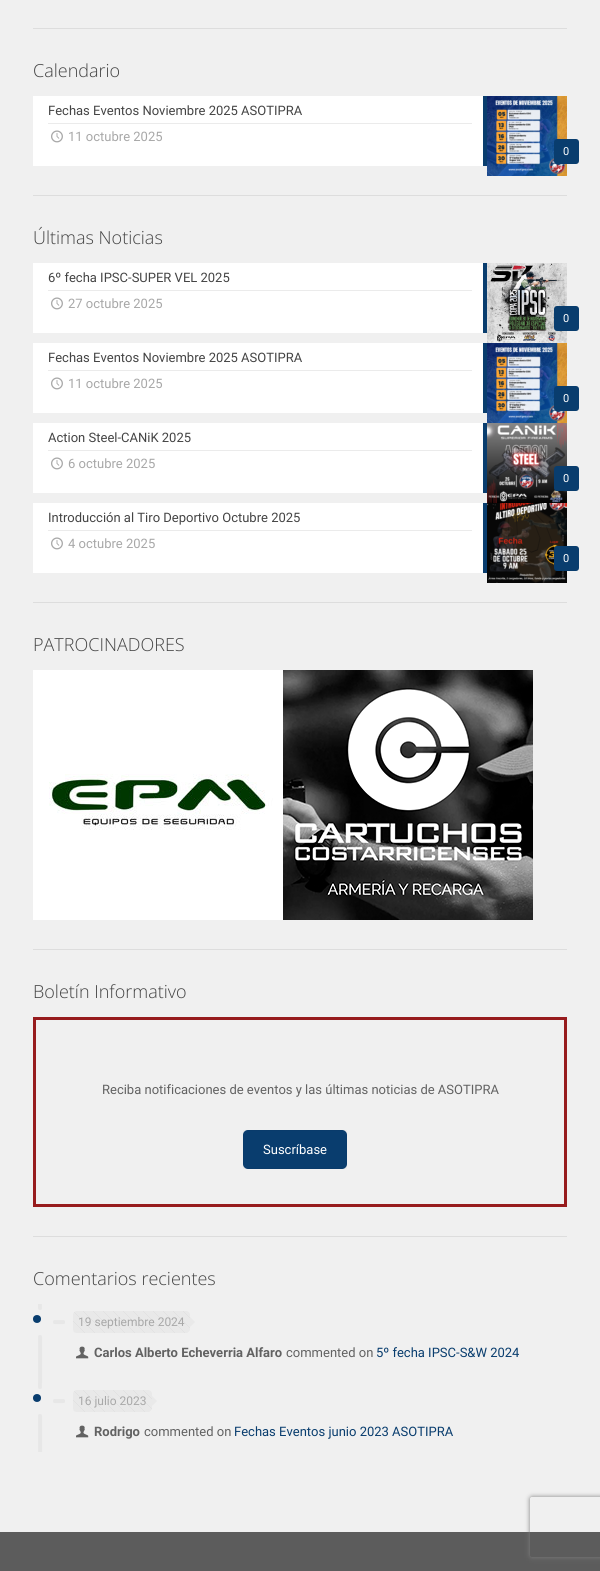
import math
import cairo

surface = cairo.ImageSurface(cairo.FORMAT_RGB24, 600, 1571)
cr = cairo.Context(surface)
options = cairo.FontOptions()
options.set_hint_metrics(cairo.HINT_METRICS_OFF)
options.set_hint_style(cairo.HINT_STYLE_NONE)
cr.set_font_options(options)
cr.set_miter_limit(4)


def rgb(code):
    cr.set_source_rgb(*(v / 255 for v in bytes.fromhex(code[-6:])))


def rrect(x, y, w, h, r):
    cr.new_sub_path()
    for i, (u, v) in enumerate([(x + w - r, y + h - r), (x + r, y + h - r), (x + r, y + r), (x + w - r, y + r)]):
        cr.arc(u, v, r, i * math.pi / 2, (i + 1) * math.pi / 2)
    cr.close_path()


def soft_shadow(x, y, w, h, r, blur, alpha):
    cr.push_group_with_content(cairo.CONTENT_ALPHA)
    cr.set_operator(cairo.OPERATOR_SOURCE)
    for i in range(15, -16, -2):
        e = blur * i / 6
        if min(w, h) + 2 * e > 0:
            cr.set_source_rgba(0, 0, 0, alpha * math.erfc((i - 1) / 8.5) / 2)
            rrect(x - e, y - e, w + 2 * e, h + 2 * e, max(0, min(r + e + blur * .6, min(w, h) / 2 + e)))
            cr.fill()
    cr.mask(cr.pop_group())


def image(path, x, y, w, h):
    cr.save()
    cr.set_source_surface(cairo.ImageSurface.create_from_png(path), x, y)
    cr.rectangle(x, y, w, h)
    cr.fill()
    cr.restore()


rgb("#f0f0f0")
cr.paint()
for x, y, w, h, color in [
    (33, 28, 534, 1, "#dddddd"),
    (33, 96, 450, 70, "#ffffff"),
    (48, 123, 424, 1, "#ebebeb"),
    (483, 96, 4, 70, "#093d6e"),
]:
    rgb(color)
    cr.rectangle(x, y, w, h)
    cr.fill()
image("img/1.png", 51, 130, 12, 13)
image("img/2.png", 487, 96, 80, 80)
rrect(554, 139, 25, 25, 3)
cr.fill()
for x, y, w, h, color in [
    (33, 195, 534, 1, "#dddddd"),
    (33, 263, 450, 70, "#ffffff"),
    (48, 290, 424, 1, "#ebebeb"),
    (483, 263, 4, 70, "#093d6e"),
]:
    rgb(color)
    cr.rectangle(x, y, w, h)
    cr.fill()
image("img/1.png", 51, 297, 12, 13)
image("img/3.png", 487, 263, 80, 80)
rrect(554, 306, 25, 25, 3)
cr.fill()
for x, y, w, h, color in [
    (33, 343, 450, 70, "#ffffff"),
    (48, 370, 424, 1, "#ebebeb"),
    (483, 343, 4, 70, "#093d6e"),
]:
    rgb(color)
    cr.rectangle(x, y, w, h)
    cr.fill()
image("img/1.png", 51, 377, 12, 13)
image("img/2.png", 487, 343, 80, 80)
rrect(554, 386, 25, 25, 3)
cr.fill()
for x, y, w, h, color in [
    (33, 423, 450, 70, "#ffffff"),
    (48, 450, 424, 1, "#ebebeb"),
    (483, 423, 4, 70, "#093d6e"),
]:
    rgb(color)
    cr.rectangle(x, y, w, h)
    cr.fill()
image("img/1.png", 51, 457, 12, 13)
image("img/4.png", 487, 423, 80, 80)
rrect(554, 466, 25, 25, 3)
cr.fill()
for x, y, w, h, color in [
    (33, 503, 450, 70, "#ffffff"),
    (48, 530, 424, 1, "#ebebeb"),
    (483, 503, 4, 70, "#093d6e"),
]:
    rgb(color)
    cr.rectangle(x, y, w, h)
    cr.fill()
image("img/1.png", 51, 537, 12, 13)
image("img/5.png", 487, 503, 80, 80)
rrect(554, 546, 25, 25, 3)
cr.fill()
rgb("#dddddd")
cr.rectangle(33, 602, 534, 1)
cr.fill()
image("img/6.png", 33, 670, 250, 250)
image("img/7.png", 283, 670, 250, 250)
cr.rectangle(33, 949, 534, 1)
cr.fill()
cr.rectangle(34.5, 1018.5, 531, 187)
rgb("#971b1d")
cr.set_line_width(3)
cr.stroke()
rgb("#093d6e")
rrect(243, 1130, 104, 39, 5)
cr.fill()
cr.rectangle(243.5, 1130.5, 103, 38)
cr.set_source_rgba(0, 0, 0, 0.03)
cr.set_line_width(1)
cr.stroke()
rgb("#dddddd")
cr.rectangle(33, 1236, 534, 1)
cr.fill()
image("img/8.png", 38, 1304, 27, 79)
rgb("#093d6e")
cr.arc(37, 1319, 4, 0, 2 * math.pi)
cr.fill()
rgb("#e9e9e9")
rrect(73, 1311, 117, 22, 4)
cr.fill()
image("img/9.png", 73, 1311, 117, 22)
cr.new_path()
cr.move_to(190, 1327)
cr.line_to(190, 1317)
cr.line_to(195, 1322)
cr.close_path()
cr.fill()
image("img/10.png", 76, 1346, 13, 13)
image("img/11.png", 38, 1383, 27, 69)
rgb("#093d6e")
cr.arc(37, 1398, 4, 0, 2 * math.pi)
cr.fill()
rgb("#e9e9e9")
rrect(73, 1390, 79, 22, 4)
cr.fill()
image("img/12.png", 73, 1390, 79, 22)
cr.new_path()
cr.move_to(152, 1406)
cr.line_to(152, 1396)
cr.line_to(157, 1401)
cr.close_path()
cr.fill()
image("img/10.png", 76, 1425, 13, 13)
rgb("#5c5c5c")
cr.rectangle(0, 1532, 600, 39)
cr.fill()
cr.save()
cr.set_fill_rule(cairo.FILL_RULE_EVEN_ODD)
cr.new_path()
cr.move_to(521, 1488)
cr.line_to(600, 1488)
cr.line_to(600, 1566)
cr.line_to(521, 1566)
cr.close_path()
cr.move_to(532, 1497)
cr.line_to(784, 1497)
cr.curve_to(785, 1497, 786, 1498, 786, 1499)
cr.line_to(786, 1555)
cr.curve_to(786, 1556, 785, 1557, 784, 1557)
cr.line_to(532, 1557)
cr.curve_to(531, 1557, 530, 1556, 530, 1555)
cr.line_to(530, 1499)
cr.curve_to(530, 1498, 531, 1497, 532, 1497)
cr.close_path()
cr.clip()
rgb("#808080")
soft_shadow(530, 1497, 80, 60, 2, 2.5, 1)
cr.restore()
cr.select_font_face("Open Sans Light")
cr.set_font_size(18)
rgb("#444444")
cr.move_to(33, 77)
cr.show_text("Calendario")
cr.select_font_face("Roboto")
cr.set_font_size(13)
cr.move_to(48, 115)
cr.show_text("Fechas Eventos Noviembre 2025 ASOTIPRA")
rgb("#a8a8a8")
cr.move_to(68, 141)
cr.show_text("11 octubre 2025")
cr.set_font_size(11)
rgb("#ffffff")
cr.move_to(563, 155)
cr.show_text("0")
cr.select_font_face("Open Sans Light")
cr.set_font_size(18)
rgb("#444444")
cr.move_to(33, 244)
cr.show_text("Últimas Noticias")
cr.select_font_face("Roboto")
cr.set_font_size(13)
cr.move_to(48, 282)
cr.show_text("6º fecha IPSC-SUPER VEL 2025")
rgb("#a8a8a8")
cr.move_to(68, 308)
cr.show_text("27 octubre 2025")
cr.set_font_size(11)
rgb("#ffffff")
cr.move_to(563, 322)
cr.show_text("0")
cr.set_font_size(13)
rgb("#444444")
cr.move_to(48, 362)
cr.show_text("Fechas Eventos Noviembre 2025 ASOTIPRA")
rgb("#a8a8a8")
cr.move_to(68, 388)
cr.show_text("11 octubre 2025")
cr.set_font_size(11)
rgb("#ffffff")
cr.move_to(563, 402)
cr.show_text("0")
cr.set_font_size(13)
rgb("#444444")
cr.move_to(48, 442)
cr.show_text("Action Steel-CANiK 2025")
rgb("#a8a8a8")
cr.move_to(68, 468)
cr.show_text("6 octubre 2025")
cr.set_font_size(11)
rgb("#ffffff")
cr.move_to(563, 482)
cr.show_text("0")
cr.set_font_size(13)
rgb("#444444")
cr.move_to(48, 522)
cr.show_text("Introducción al Tiro Deportivo Octubre 2025")
rgb("#a8a8a8")
cr.move_to(68, 548)
cr.show_text("4 octubre 2025")
cr.set_font_size(11)
rgb("#ffffff")
cr.move_to(563, 562)
cr.show_text("0")
cr.select_font_face("Open Sans Light")
cr.set_font_size(18)
rgb("#444444")
cr.move_to(33, 651)
cr.show_text("PATROCINADORES")
cr.move_to(33, 998)
cr.show_text("Boletín Informativo")
cr.select_font_face("Roboto")
cr.set_font_size(13)
rgb("#626262")
cr.move_to(102, 1094)
cr.show_text("Reciba notificaciones de eventos y las últimas noticias de ASOTIPRA")
rgb("#ffffff")
cr.move_to(263, 1154)
cr.show_text("Suscríbase")
cr.select_font_face("Open Sans Light")
cr.set_font_size(18)
rgb("#444444")
cr.move_to(33, 1285)
cr.show_text("Comentarios recientes")
cr.select_font_face("Roboto")
cr.set_font_size(12)
rgb("#a8a8a8")
cr.move_to(78, 1326)
cr.show_text("19 septiembre 2024")
cr.select_font_face("Roboto", cairo.FONT_SLANT_NORMAL, cairo.FONT_WEIGHT_BOLD)
cr.set_font_size(13)
rgb("#626262")
cr.move_to(94, 1357)
cr.show_text("Carlos Alberto Echeverria Alfaro")
cr.select_font_face("Roboto")
cr.move_to(286, 1357)
cr.show_text("commented on")
rgb("#093d6e")
cr.move_to(376, 1357)
cr.show_text("5º fecha IPSC-S&W 2024")
cr.set_font_size(12)
rgb("#a8a8a8")
cr.move_to(78, 1405)
cr.show_text("16 julio 2023")
cr.select_font_face("Roboto", cairo.FONT_SLANT_NORMAL, cairo.FONT_WEIGHT_BOLD)
cr.set_font_size(13)
rgb("#626262")
cr.move_to(94, 1436)
cr.show_text("Rodrigo")
cr.select_font_face("Roboto")
cr.move_to(144, 1436)
cr.show_text("commented on")
rgb("#093d6e")
cr.move_to(234, 1436)
cr.show_text("Fechas Eventos junio 2023 ASOTIPRA")
surface.write_to_png("page.png")
